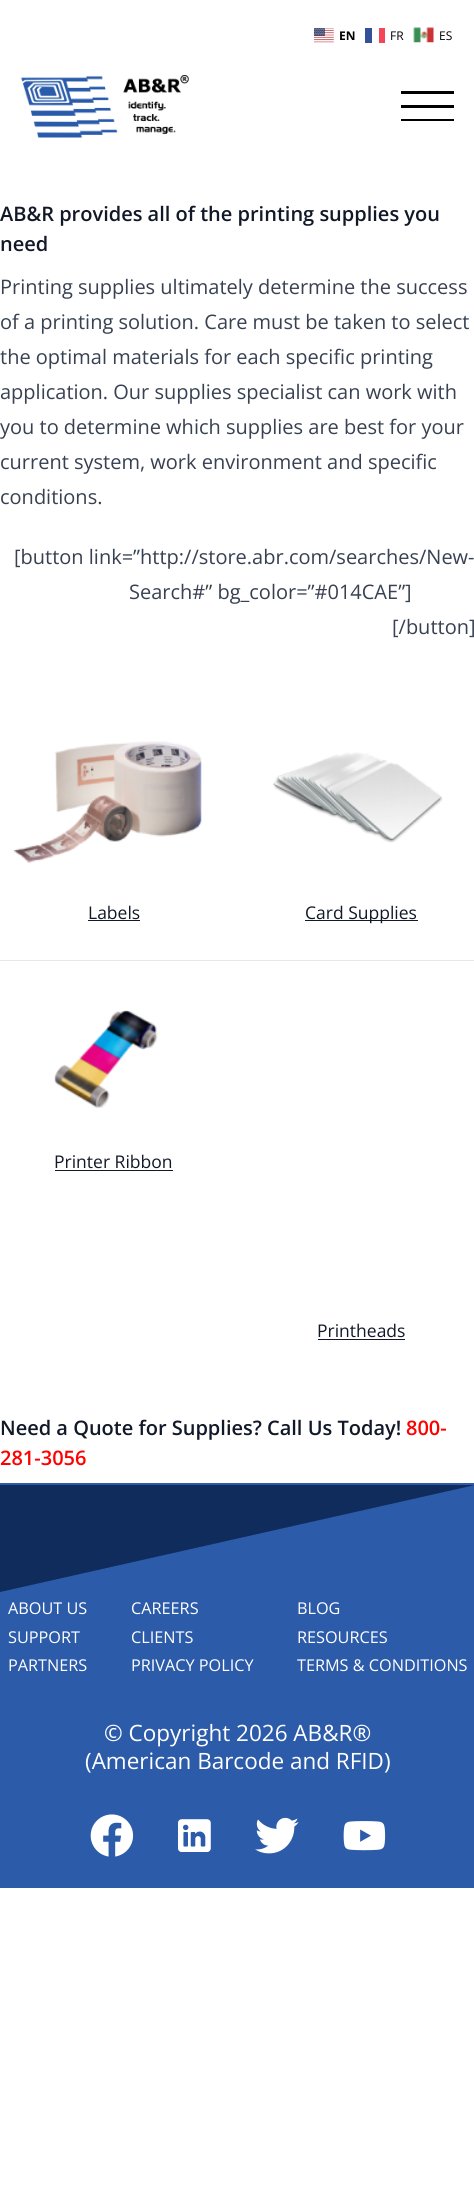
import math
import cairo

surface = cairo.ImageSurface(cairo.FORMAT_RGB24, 474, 2185)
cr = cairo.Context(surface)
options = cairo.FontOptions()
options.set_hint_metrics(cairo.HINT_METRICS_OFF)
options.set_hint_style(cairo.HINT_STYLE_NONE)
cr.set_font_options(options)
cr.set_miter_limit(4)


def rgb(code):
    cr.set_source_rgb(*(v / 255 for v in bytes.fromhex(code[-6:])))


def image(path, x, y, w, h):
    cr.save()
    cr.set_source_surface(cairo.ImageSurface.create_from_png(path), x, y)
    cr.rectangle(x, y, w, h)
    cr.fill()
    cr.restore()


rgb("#ffffff")
cr.paint()
image("img/1.png", 314, 28, 20, 15)
rgb("#335199")
cr.rectangle(365, 28, 7, 15)
cr.fill()
rgb("#f54659")
cr.rectangle(379, 28, 6, 15)
cr.fill()
image("img/2.png", 413, 27, 21, 16)
image("img/3.png", 21, 75, 168, 63)
for x, y, w, h, color in [
    (401, 91, 53, 3, "#000000"),
    (401, 105, 53, 3, "#000000"),
    (401, 119, 53, 2, "#000000"),
    (0, 960, 474, 1, "#e5e7eb"),
]:
    rgb(color)
    cr.rectangle(x, y, w, h)
    cr.fill()
image("img/4.png", 13, 741, 189, 122)
rgb("#111827")
cr.rectangle(88, 920, 52, 1)
cr.fill()
image("img/5.png", 272, 752, 171, 91)
cr.rectangle(305, 920, 113, 1)
cr.fill()
image("img/6.png", 54, 1010, 104, 98)
for x, y, w, h, color in [
    (55, 1170, 118, 1, "#111827"),
    (318, 1339, 87, 1, "#111827"),
    (0, 1483, 474, 405, "#2c5ba9"),
]:
    rgb(color)
    cr.rectangle(x, y, w, h)
    cr.fill()
rgb("#0f2c5c")
cr.new_path()
cr.move_to(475, 1485)
cr.line_to(0, 1592)
cr.line_to(0, 1485)
cr.close_path()
cr.fill()
image("img/7.png", 90, 1814, 44, 43)
image("img/8.png", 178, 1819, 33, 33)
image("img/9.png", 255, 1817, 44, 37)
image("img/10.png", 343, 1821, 43, 30)
cr.select_font_face("Open Sans", cairo.FONT_SLANT_NORMAL, cairo.FONT_WEIGHT_BOLD)
cr.set_font_size(12)
rgb("#000000")
cr.move_to(339, 40)
cr.show_text("EN")
cr.select_font_face("Open Sans")
cr.move_to(390, 40)
cr.show_text("FR")
cr.move_to(439, 40)
cr.show_text("ES")
cr.select_font_face("Open Sans SemiBold")
cr.set_font_size(20)
rgb("#111827")
cr.move_to(0, 221)
cr.show_text("AB&R provides all of the printing supplies you")
cr.move_to(0, 251)
cr.show_text("need")
cr.select_font_face("Open Sans")
rgb("#374151")
for x, y, s in [
    (0, 294, "Printing supplies ultimately determine the success"),
    (0, 329, "of a printing solution. Care must be taken to select"),
    (0, 364, "the optimal materials for each specific printing"),
    (0, 399, "application. Our supplies specialist can work with"),
    (0, 434, "you to determine which supplies are best for your"),
    (0, 469, "current system, work environment and specific"),
    (0, 504, "conditions."),
    (14, 564, "[button link=”http://store.abr.com/searches/New-"),
    (129, 599, "Search#” bg_color=”#014CAE”]"),
    (392, 634, "[/button]"),
]:
    cr.move_to(x, y)
    cr.show_text(s)
cr.set_font_size(17.5)
rgb("#111827")
for x, y, s in [
    (88, 919, "Labels"),
    (305, 919, "Card Supplies"),
    (54, 1168, "Printer Ribbon"),
    (317, 1337, "Printheads"),
]:
    cr.move_to(x, y)
    cr.show_text(s)
cr.select_font_face("Open Sans SemiBold")
cr.set_font_size(20)
cr.move_to(0, 1435)
cr.show_text("Need a Quote for Supplies? Call Us Today!")
rgb("#ff0000")
cr.move_to(406, 1435)
cr.show_text("800-")
cr.move_to(0, 1465)
cr.show_text("281-3056")
cr.select_font_face("Open Sans")
cr.set_font_size(16.25)
rgb("#ffffff")
for x, y, s in [
    (8, 1614, "ABOUT US"),
    (8, 1643, "SUPPORT"),
    (8, 1671, "PARTNERS"),
    (131, 1614, "CAREERS"),
    (131, 1643, "CLIENTS"),
    (131, 1671, "PRIVACY POLICY"),
    (297, 1614, "BLOG"),
    (297, 1643, "RESOURCES"),
    (297, 1671, "TERMS & CONDITIONS"),
]:
    cr.move_to(x, y)
    cr.show_text(s)
cr.set_font_size(22.5)
cr.move_to(104, 1741)
cr.show_text("© Copyright 2026 AB&R®")
cr.move_to(85, 1769)
cr.show_text("(American Barcode and RFID)")
surface.write_to_png("page.png")
